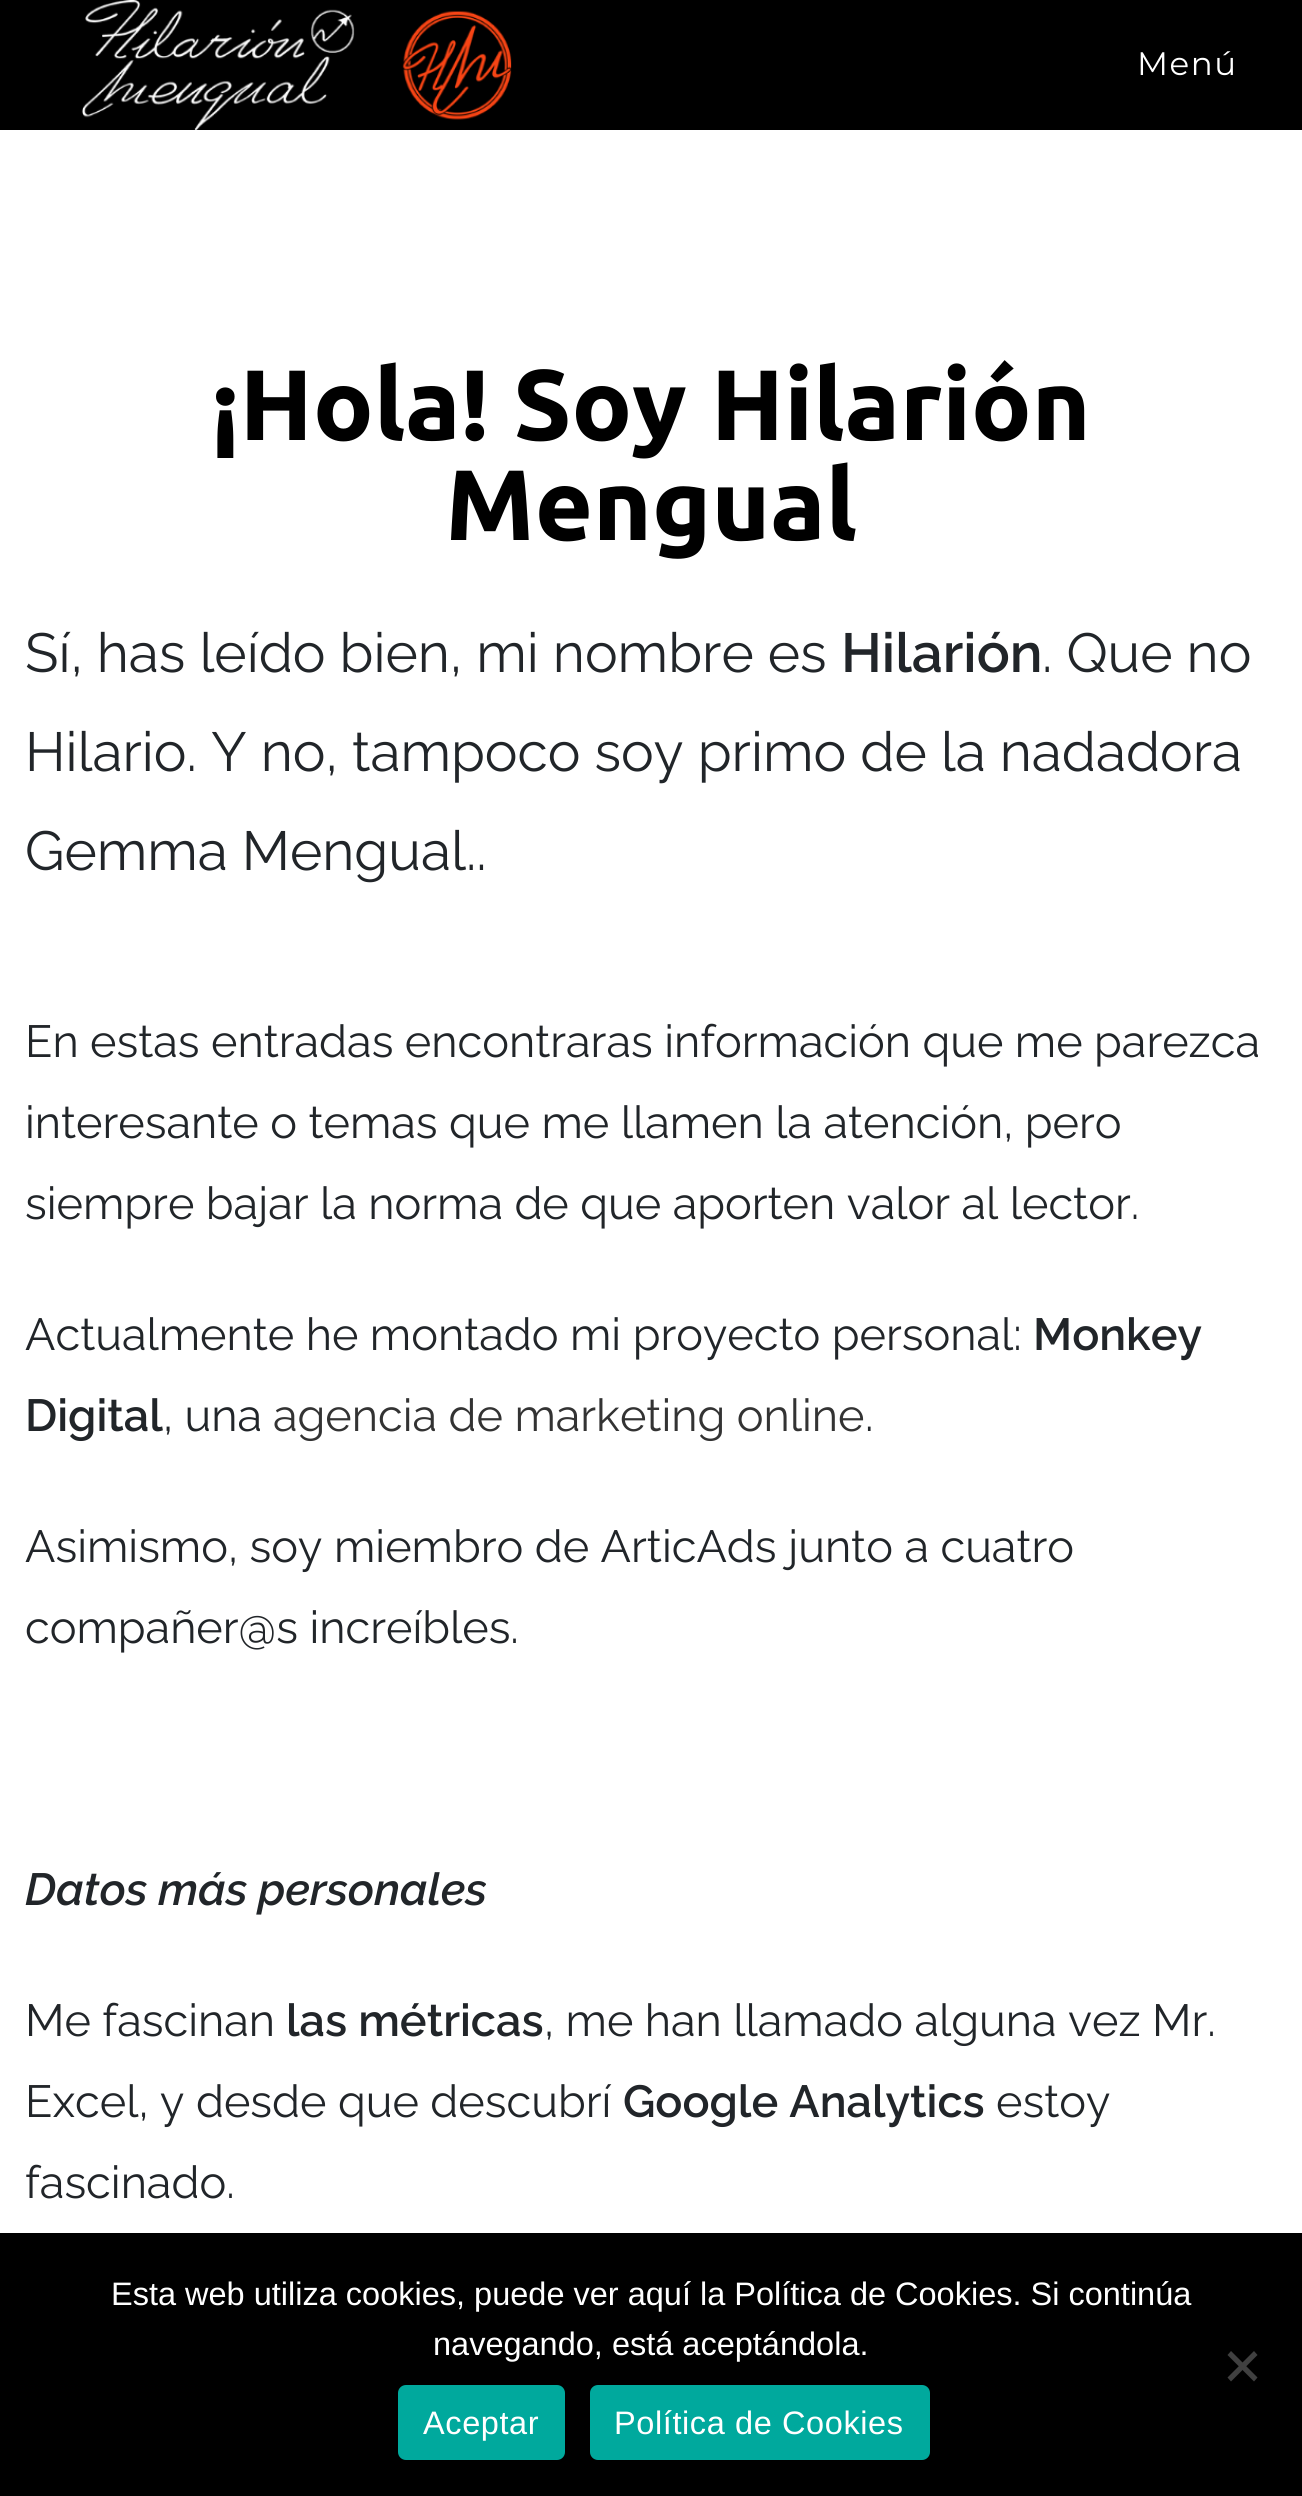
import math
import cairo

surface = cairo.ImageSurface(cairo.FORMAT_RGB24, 1302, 2496)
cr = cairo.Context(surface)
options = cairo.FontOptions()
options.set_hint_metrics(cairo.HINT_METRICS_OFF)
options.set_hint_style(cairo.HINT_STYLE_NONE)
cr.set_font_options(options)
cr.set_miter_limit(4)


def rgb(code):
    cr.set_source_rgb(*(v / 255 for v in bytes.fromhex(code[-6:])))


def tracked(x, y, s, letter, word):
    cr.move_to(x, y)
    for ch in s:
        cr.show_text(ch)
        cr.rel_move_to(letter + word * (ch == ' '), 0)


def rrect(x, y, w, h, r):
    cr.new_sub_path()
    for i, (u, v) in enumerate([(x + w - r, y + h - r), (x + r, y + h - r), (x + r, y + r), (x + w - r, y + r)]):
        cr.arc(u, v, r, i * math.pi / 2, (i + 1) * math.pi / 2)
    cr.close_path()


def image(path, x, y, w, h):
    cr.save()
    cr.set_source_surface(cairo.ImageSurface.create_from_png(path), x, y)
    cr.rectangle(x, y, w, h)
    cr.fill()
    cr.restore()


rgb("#ffffff")
cr.paint()
rgb("#000000")
cr.rectangle(0, 0, 1302, 130)
cr.fill()
image("img/1.png", 81, 0, 431, 130)
cr.rectangle(0, 2233, 1302, 263)
cr.fill()
rgb("#404040")
cr.new_path()
cr.move_to(1254, 2351)
cr.line_to(1257.5, 2355)
cr.line_to(1231, 2381.5)
cr.line_to(1227.5, 2377.5)
cr.close_path()
cr.fill()
cr.new_path()
cr.move_to(1227.5, 2355)
cr.line_to(1231, 2351)
cr.line_to(1257.5, 2377.5)
cr.line_to(1254, 2381.5)
cr.close_path()
cr.fill()
rgb("#00a99d")
rrect(398, 2385, 167, 75, 8)
cr.fill()
rrect(590, 2385, 340, 75, 8)
cr.fill()
cr.select_font_face("Montserrat")
cr.set_font_size(32.5)
rgb("#ffffff")
tracked(1137, 75, "Menú", 1.5, 0)
cr.select_font_face("Ubuntu", cairo.FONT_SLANT_NORMAL, cairo.FONT_WEIGHT_BOLD)
cr.set_font_size(100)
rgb("#000000")
cr.move_to(211, 440)
cr.show_text("¡Hola! Soy Hilarión")
cr.move_to(445, 540)
cr.show_text("Mengual")
cr.select_font_face("Raleway")
cr.set_font_size(55)
rgb("#212529")
cr.move_to(25, 672)
cr.show_text("Sí, has leído bien, mi nombre es")
cr.select_font_face("Raleway SemiBold")
cr.move_to(841, 672)
cr.show_text("Hilarión")
cr.select_font_face("Raleway")
for x, y, s in [
    (1042, 672, ". Que no"),
    (25, 771, "Hilario. Y no, tampoco soy primo de la nadadora"),
    (25, 870, "Gemma Mengual.."),
]:
    cr.move_to(x, y)
    cr.show_text(s)
cr.set_font_size(45)
for x, y, s in [
    (25, 1057, "En estas entradas encontraras información que me parezca"),
    (25, 1138, "interesante o temas que me llamen la atención, pero"),
    (25, 1219, "siempre bajar la norma de que aporten valor al lector."),
    (25, 1350, "Actualmente he montado mi proyecto personal:"),
]:
    cr.move_to(x, y)
    cr.show_text(s)
cr.select_font_face("Raleway SemiBold")
cr.move_to(1033, 1350)
cr.show_text("Monkey")
cr.move_to(25, 1431)
cr.show_text("Digital")
cr.select_font_face("Raleway")
cr.move_to(163, 1431)
cr.show_text(", una")
rgb("#333333")
cr.move_to(273, 1431)
cr.show_text("agencia de marketing online")
rgb("#212529")
for x, y, s in [
    (865, 1431, "."),
    (25, 1562, "Asimismo, soy miembro de ArticAds junto a cuatro"),
    (25, 1643, "compañer@s increíbles."),
]:
    cr.move_to(x, y)
    cr.show_text(s)
cr.select_font_face("Raleway SemiBold", cairo.FONT_SLANT_ITALIC)
cr.move_to(25, 1905)
cr.show_text("Datos más personales")
cr.select_font_face("Raleway")
cr.move_to(25, 2036)
cr.show_text("Me fascinan")
cr.select_font_face("Raleway SemiBold")
cr.move_to(286, 2036)
cr.show_text("las métricas")
cr.select_font_face("Raleway")
cr.move_to(544, 2036)
cr.show_text(", me han llamado alguna vez Mr.")
cr.move_to(25, 2117)
cr.show_text("Excel, y desde que descubrí")
cr.select_font_face("Raleway SemiBold")
cr.move_to(623, 2117)
cr.show_text("Google Analytics")
cr.select_font_face("Raleway")
cr.move_to(996, 2117)
cr.show_text("estoy")
cr.move_to(25, 2198)
cr.show_text("fascinado.")
cr.select_font_face("Liberation Sans")
cr.set_font_size(32.5)
rgb("#ffffff")
cr.move_to(111, 2305)
cr.show_text("Esta web utiliza cookies, puede ver aquí la Política de Cookies. Si continúa")
cr.move_to(433, 2355)
cr.show_text("navegando, está aceptándola.")
tracked(423, 2434, "Aceptar", 0.6, 0)
tracked(614, 2434, "Política de Cookies", 0.6, 0)
surface.write_to_png("page.png")
